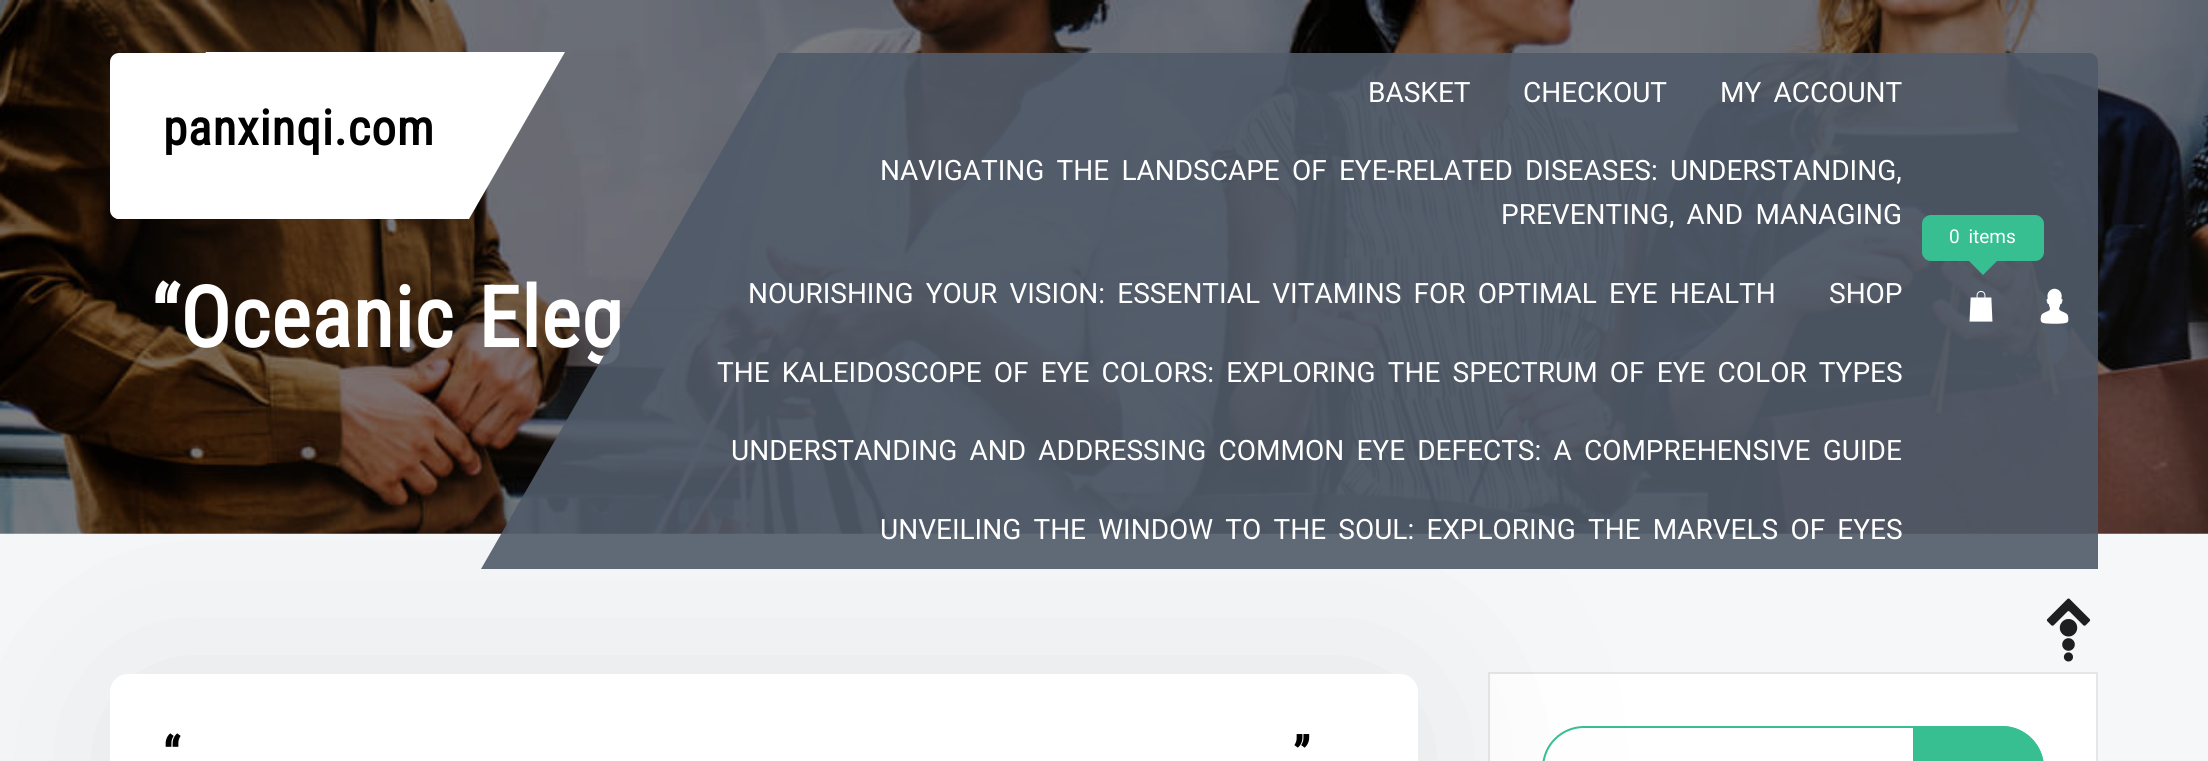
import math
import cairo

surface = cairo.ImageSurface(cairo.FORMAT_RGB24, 2208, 761)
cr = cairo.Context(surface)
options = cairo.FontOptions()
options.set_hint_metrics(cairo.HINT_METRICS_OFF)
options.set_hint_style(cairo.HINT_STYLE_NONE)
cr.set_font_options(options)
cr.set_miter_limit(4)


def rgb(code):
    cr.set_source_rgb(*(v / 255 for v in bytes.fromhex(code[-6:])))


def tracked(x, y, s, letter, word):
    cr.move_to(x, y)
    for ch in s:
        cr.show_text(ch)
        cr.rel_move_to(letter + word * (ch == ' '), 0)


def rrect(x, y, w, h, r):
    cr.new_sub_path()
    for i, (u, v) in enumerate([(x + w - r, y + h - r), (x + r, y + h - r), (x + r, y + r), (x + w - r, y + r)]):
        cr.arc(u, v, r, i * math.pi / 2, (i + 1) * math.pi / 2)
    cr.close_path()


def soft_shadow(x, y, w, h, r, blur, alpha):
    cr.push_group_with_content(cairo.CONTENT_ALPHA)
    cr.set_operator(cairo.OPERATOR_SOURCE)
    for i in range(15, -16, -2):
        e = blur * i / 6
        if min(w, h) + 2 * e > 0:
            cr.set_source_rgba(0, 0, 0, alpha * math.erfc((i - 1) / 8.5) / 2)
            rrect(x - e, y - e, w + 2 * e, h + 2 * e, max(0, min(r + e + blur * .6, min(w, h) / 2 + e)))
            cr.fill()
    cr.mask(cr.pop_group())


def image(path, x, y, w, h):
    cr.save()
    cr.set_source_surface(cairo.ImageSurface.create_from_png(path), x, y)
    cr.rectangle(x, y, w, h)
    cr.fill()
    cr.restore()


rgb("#f6f7f9")
cr.paint()
image("img/3.png", 0, 0, 2208, 534)
rgb("#ffffff")
cr.new_path()
cr.move_to(206, 52)
cr.line_to(565, 52)
cr.line_to(469, 219)
cr.line_to(119, 219)
cr.curve_to(114, 219, 113, 215, 115, 210)
cr.close_path()
cr.fill()
cr.new_path()
cr.move_to(119, 53)
cr.line_to(469, 53)
cr.line_to(469, 219)
cr.line_to(119, 219)
cr.curve_to(114, 219, 110, 215, 110, 210)
cr.line_to(110, 62)
cr.curve_to(110, 57, 114, 53, 119, 53)
cr.close_path()
cr.fill()
image("img/4.png", 2046, 598, 45, 64)
cr.rectangle(1489, 673, 608, 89)
cr.fill_preserve()
rgb("#e6e6e6")
cr.stroke()
rrect(1543, 727, 500, 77, 41)
rgb("#37bf91")
cr.stroke()
rgb("#4a4a4a")
soft_shadow(110, 674, 1308, 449, 18, 114.5, 0.1)
rgb("#ffffff")
rrect(110, 674, 1308, 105, 18)
cr.fill()
rgb("#37bf91")
cr.new_path()
cr.move_to(1913, 726)
cr.line_to(2002, 726)
cr.curve_to(2025, 726, 2044, 745, 2044, 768)
cr.line_to(2044, 761)
cr.curve_to(2044, 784, 2025, 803, 2002, 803)
cr.line_to(1913, 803)
cr.close_path()
cr.fill()
cr.select_font_face("Roboto Condensed", cairo.FONT_SLANT_NORMAL, cairo.FONT_WEIGHT_BOLD)
cr.set_font_size(49)
rgb("#000000")
tracked(163, 145, "panxinqi.com", 0.9, 0)
cr.set_font_size(84)
rgb("#ffffff")
tracked(151, 347, "“Oceanic Eleg", 0.9, 4)
cr.set_source_rgba(0.314, 0.353, 0.408, 0.9)
cr.new_path()
cr.move_to(481, 569)
cr.line_to(2098, 569)
cr.line_to(2098, 62)
cr.curve_to(2098, 57, 2094, 53, 2089, 53)
cr.line_to(778, 53)
cr.close_path()
cr.fill()
image("img/2.png", 2040, 288, 29, 36)
rgb("#37bf91")
cr.new_path()
cr.move_to(1969, 261)
cr.line_to(1997, 261)
cr.line_to(1983, 275)
cr.close_path()
cr.fill()
rrect(1922, 215, 122, 46, 9)
cr.fill()
cr.select_font_face("Roboto")
cr.set_font_size(19)
rgb("#ffffff")
tracked(1949, 243, "0 items", 0, 4)
image("img/1.png", 1969, 290, 24, 32)
cr.set_font_size(28)
for x, y, s in [
    (880, 539, "UNVEILING THE WINDOW TO THE SOUL: EXPLORING THE MARVELS OF EYES"),
    (731, 460, "UNDERSTANDING AND ADDRESSING COMMON EYE DEFECTS: A COMPREHENSIVE GUIDE"),
    (717, 382, "THE KALEIDOSCOPE OF EYE COLORS: EXPLORING THE SPECTRUM OF EYE COLOR TYPES"),
]:
    tracked(x, y, s, 0, 5.25)
cr.move_to(1829, 303)
cr.show_text("SHOP")
for x, y, s in [
    (748, 303, "NOURISHING YOUR VISION: ESSENTIAL VITAMINS FOR OPTIMAL EYE HEALTH"),
    (1501, 224, "PREVENTING, AND MANAGING"),
    (880, 180, "NAVIGATING THE LANDSCAPE OF EYE-RELATED DISEASES: UNDERSTANDING,"),
    (1720, 102, "MY ACCOUNT"),
]:
    tracked(x, y, s, 0, 5.25)
cr.move_to(1523, 102)
cr.show_text("CHECKOUT")
cr.move_to(1368, 102)
cr.show_text("BASKET")
cr.select_font_face("Roboto Condensed", cairo.FONT_SLANT_NORMAL, cairo.FONT_WEIGHT_BOLD)
cr.set_font_size(50)
rgb("#000000")
tracked(163, 773, "“", 0.9, 0)
tracked(1293, 773, "”", 0.9, 0)
surface.write_to_png("page.png")
